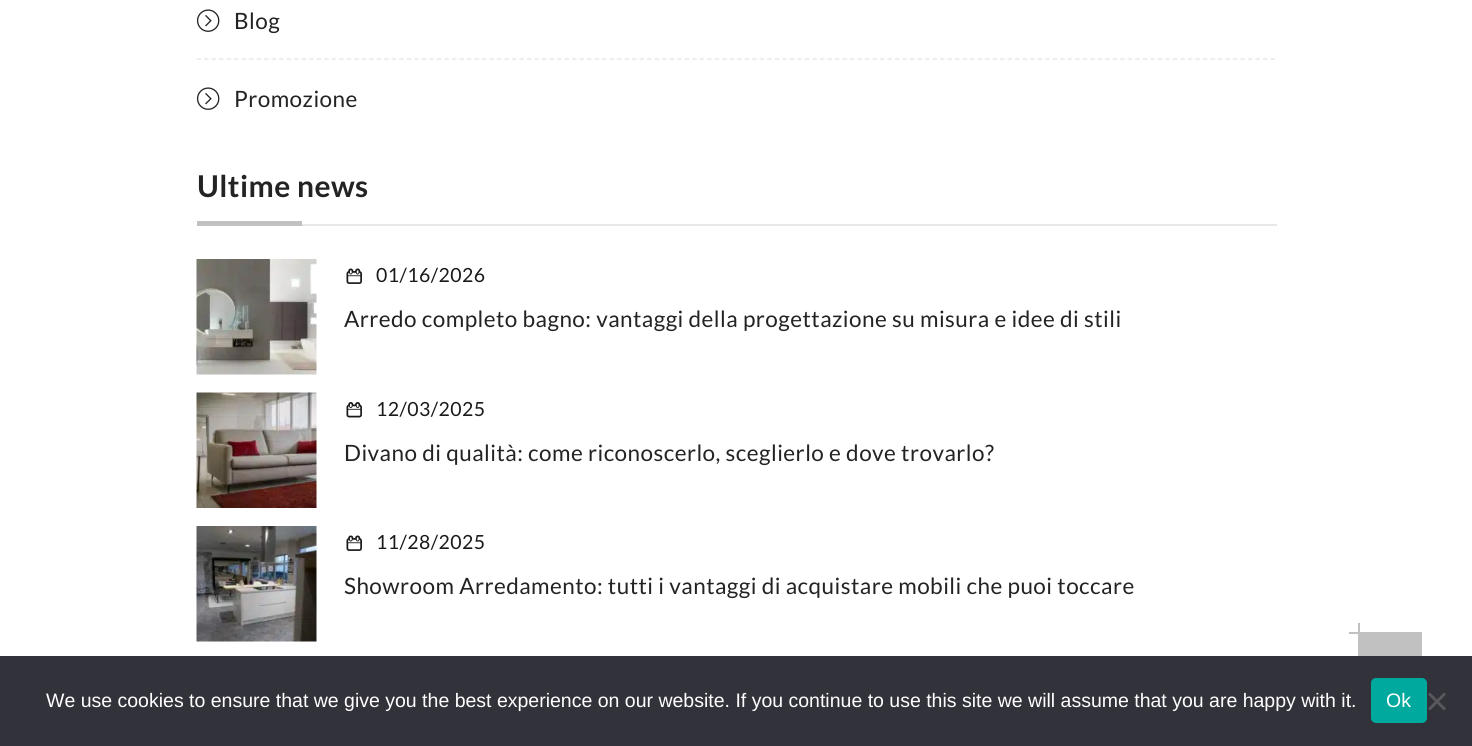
import math
import cairo

surface = cairo.ImageSurface(cairo.FORMAT_RGB24, 1472, 746)
cr = cairo.Context(surface)
options = cairo.FontOptions()
options.set_hint_metrics(cairo.HINT_METRICS_OFF)
options.set_hint_style(cairo.HINT_STYLE_NONE)
cr.set_font_options(options)
cr.set_miter_limit(4)


def rgb(code):
    cr.set_source_rgb(*(v / 255 for v in bytes.fromhex(code[-6:])))


def tracked(x, y, s, letter, word):
    cr.move_to(x, y)
    for ch in s:
        cr.show_text(ch)
        cr.rel_move_to(letter + word * (ch == ' '), 0)


def rrect(x, y, w, h, r):
    cr.new_sub_path()
    for i, (u, v) in enumerate([(x + w - r, y + h - r), (x + r, y + h - r), (x + r, y + r), (x + w - r, y + r)]):
        cr.arc(u, v, r, i * math.pi / 2, (i + 1) * math.pi / 2)
    cr.close_path()


def image(path, x, y, w, h):
    cr.save()
    cr.set_source_surface(cairo.ImageSurface.create_from_png(path), x, y)
    cr.rectangle(x, y, w, h)
    cr.fill()
    cr.restore()


rgb("#ffffff")
cr.paint()
image("img/1.png", 196, 9, 24, 23)
cr.new_path()
cr.move_to(196.5, 59)
cr.line_to(1276.5, 59)
rgb("#e8e8e8")
cr.set_line_width(1.5)
cr.set_dash([4.5, 3.01])
cr.stroke()
image("img/1.png", 196, 87, 24, 23)
cr.rectangle(302, 224, 975, 2)
cr.fill()
rgb("#c1c1c1")
cr.rectangle(197, 221, 105, 5)
cr.fill()
image("img/2.png", 196, 259, 121, 116)
image("img/3.png", 346, 268, 16, 16)
image("img/4.png", 196, 392, 121, 116)
image("img/5.png", 346, 402, 16, 16)
image("img/6.png", 196, 526, 121, 116)
image("img/3.png", 346, 535, 16, 16)
for x, y, w, h, color in [
    (1358, 632, 64, 24, "#c1c1c1"),
    (1358, 623, 2, 10, "#c1c1c1"),
    (1349, 632, 10, 2, "#c1c1c1"),
    (0, 656, 1472, 90, "#32323a"),
]:
    rgb(color)
    cr.rectangle(x, y, w, h)
    cr.fill()
rgb("#00a99d")
rrect(1371, 678, 56, 45, 5)
cr.fill()
rgb("#59595d")
cr.new_path()
cr.move_to(1444, 692.5)
cr.line_to(1446, 694.5)
cr.line_to(1430, 710.5)
cr.line_to(1428, 708.5)
cr.close_path()
cr.fill()
cr.new_path()
cr.move_to(1428, 694.5)
cr.line_to(1430, 692.5)
cr.line_to(1446, 708.5)
cr.line_to(1444, 710.5)
cr.close_path()
cr.fill()
cr.select_font_face("Lato")
cr.set_font_size(22.5)
rgb("#232323")
tracked(234, 29, "Blog", 0.45, 0)
tracked(234, 107, "Promozione", 0.45, 0)
cr.select_font_face("Lato", cairo.FONT_SLANT_NORMAL, cairo.FONT_WEIGHT_BOLD)
cr.set_font_size(30)
tracked(197, 197, "Ultime news", 0.45, 0)
cr.select_font_face("Lato")
cr.set_font_size(19.5)
rgb("#1a1a1a")
tracked(376, 282, "01/16/2026", 0.45, 0)
cr.set_font_size(22.5)
rgb("#232323")
tracked(344, 327, "Arredo completo bagno: vantaggi della progettazione su misura e idee di stili", 0.45, 0)
cr.set_font_size(19.5)
rgb("#1a1a1a")
tracked(376, 416, "12/03/2025", 0.45, 0)
cr.set_font_size(22.5)
rgb("#232323")
tracked(344, 461, "Divano di qualità: come riconoscerlo, sceglierlo e dove trovarlo?", 0.45, 0)
cr.set_font_size(19.5)
rgb("#1a1a1a")
tracked(376, 549, "11/28/2025", 0.45, 0)
cr.set_font_size(22.5)
rgb("#232323")
tracked(344, 594, "Showroom Arredamento: tutti i vantaggi di acquistare mobili che puoi toccare", 0.45, 0)
cr.select_font_face("Liberation Sans")
cr.set_font_size(19.5)
rgb("#ffffff")
cr.move_to(46, 707)
cr.show_text("We use cookies to ensure that we give you the best experience on our website. If you continue to use this site we will assume that you are happy with it.")
cr.move_to(1386, 707)
cr.show_text("Ok")
surface.write_to_png("page.png")
